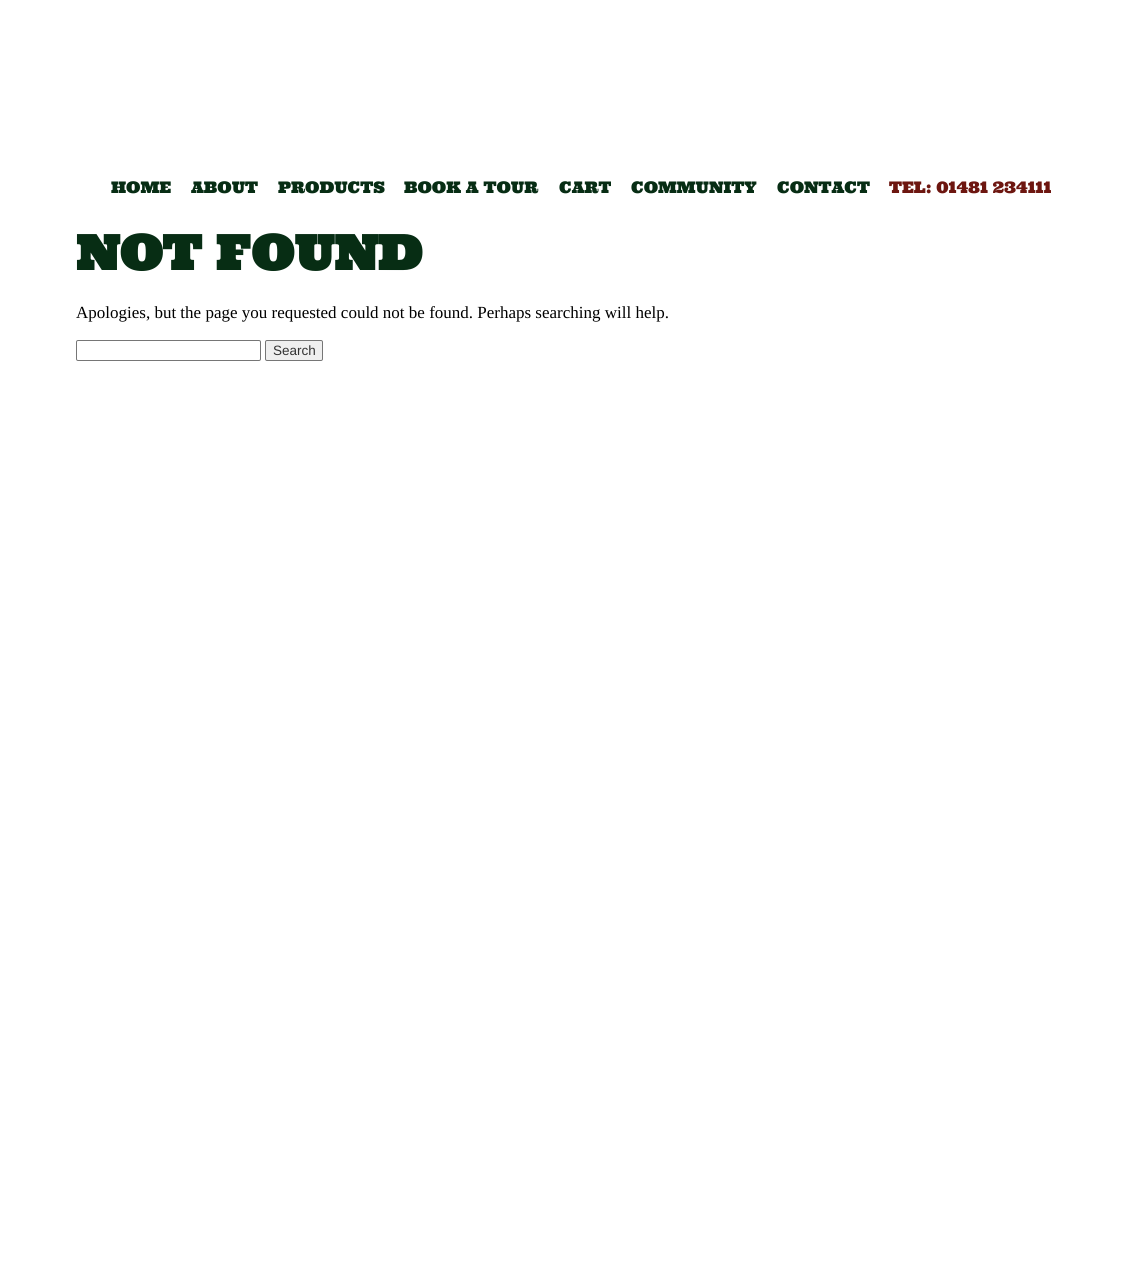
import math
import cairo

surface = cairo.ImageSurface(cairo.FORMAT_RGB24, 1141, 1271)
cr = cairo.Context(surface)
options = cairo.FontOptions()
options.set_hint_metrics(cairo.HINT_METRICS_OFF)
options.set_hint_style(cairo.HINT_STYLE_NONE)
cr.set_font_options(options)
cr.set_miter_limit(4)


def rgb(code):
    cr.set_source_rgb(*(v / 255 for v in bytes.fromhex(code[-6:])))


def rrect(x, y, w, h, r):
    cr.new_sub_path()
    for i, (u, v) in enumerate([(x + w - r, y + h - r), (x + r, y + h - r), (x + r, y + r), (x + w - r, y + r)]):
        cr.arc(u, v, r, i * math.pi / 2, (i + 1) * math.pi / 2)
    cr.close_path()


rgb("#ffffff")
cr.paint()
rrect(76.5, 340.5, 184, 20, 1.5)
rgb("#767676")
cr.set_line_width(1)
cr.stroke()
rgb("#efefef")
rrect(265.5, 340.5, 57, 20, 1.5)
cr.fill_preserve()
rgb("#767676")
cr.stroke()
cr.select_font_face("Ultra")
cr.set_font_size(16)
rgb("#072d14")
for x, y, s in [
    (111, 193, "HOME"),
    (191, 193, "ABOUT"),
    (278, 193, "PRODUCTS"),
    (404, 193, "BOOK A TOUR"),
    (559, 193, "CART"),
    (631, 193, "COMMUNITY"),
    (777, 193, "CONTACT"),
]:
    cr.move_to(x, y)
    cr.show_text(s)
rgb("#6d1610")
cr.move_to(889, 193)
cr.show_text("TEL: 01481 234111")
cr.select_font_face("Ultra", cairo.FONT_SLANT_NORMAL, cairo.FONT_WEIGHT_BOLD)
cr.set_font_size(48)
rgb("#072d14")
cr.move_to(76, 270)
cr.show_text("NOT FOUND")
cr.select_font_face("Liberation Serif")
cr.set_font_size(17)
rgb("#000000")
cr.move_to(76, 318)
cr.show_text("Apologies, but the page you requested could not be found. Perhaps searching will help.")
cr.select_font_face("Liberation Sans")
cr.set_font_size(13.5)
rgb("#333333")
cr.move_to(273, 355)
cr.show_text("Search")
surface.write_to_png("page.png")
